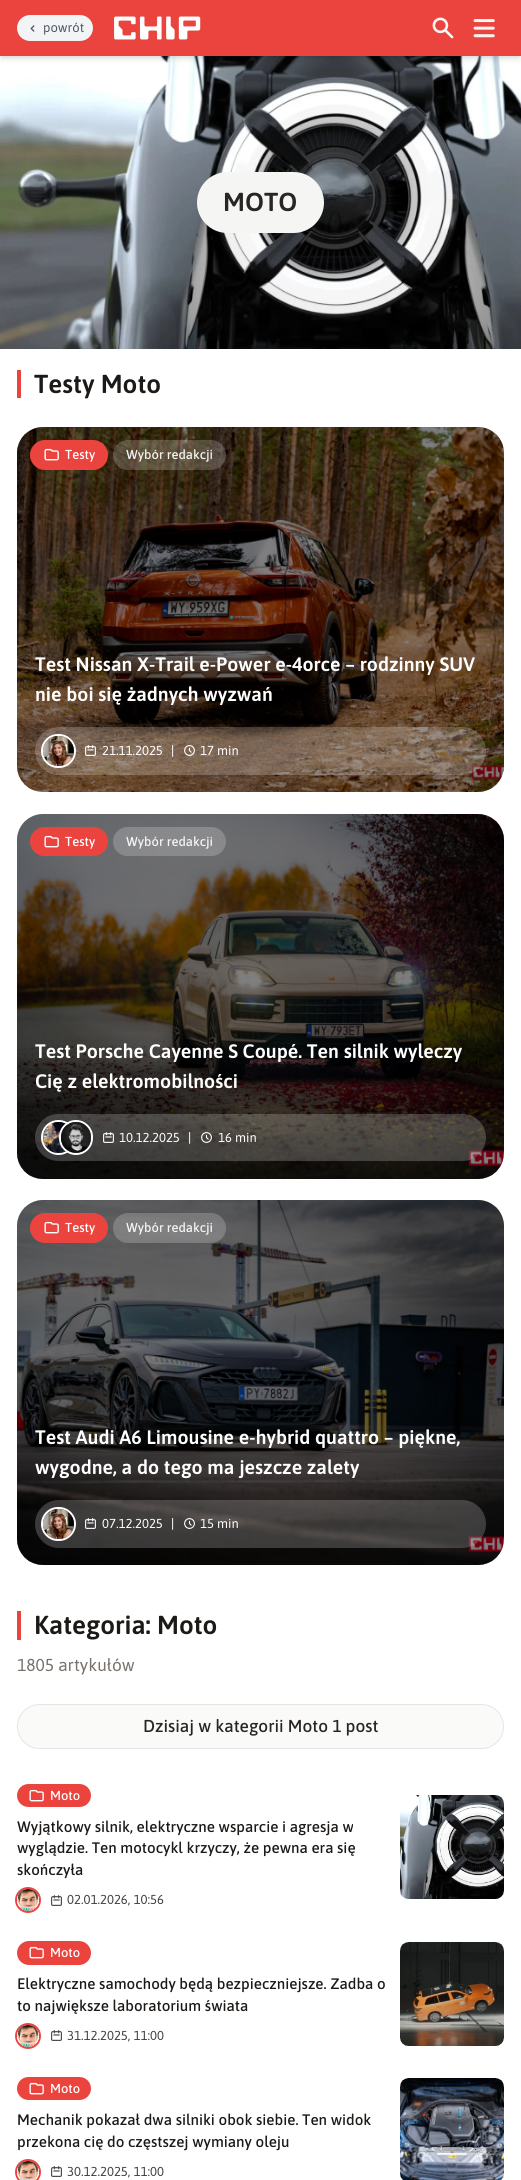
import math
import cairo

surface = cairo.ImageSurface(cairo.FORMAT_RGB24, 521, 2180)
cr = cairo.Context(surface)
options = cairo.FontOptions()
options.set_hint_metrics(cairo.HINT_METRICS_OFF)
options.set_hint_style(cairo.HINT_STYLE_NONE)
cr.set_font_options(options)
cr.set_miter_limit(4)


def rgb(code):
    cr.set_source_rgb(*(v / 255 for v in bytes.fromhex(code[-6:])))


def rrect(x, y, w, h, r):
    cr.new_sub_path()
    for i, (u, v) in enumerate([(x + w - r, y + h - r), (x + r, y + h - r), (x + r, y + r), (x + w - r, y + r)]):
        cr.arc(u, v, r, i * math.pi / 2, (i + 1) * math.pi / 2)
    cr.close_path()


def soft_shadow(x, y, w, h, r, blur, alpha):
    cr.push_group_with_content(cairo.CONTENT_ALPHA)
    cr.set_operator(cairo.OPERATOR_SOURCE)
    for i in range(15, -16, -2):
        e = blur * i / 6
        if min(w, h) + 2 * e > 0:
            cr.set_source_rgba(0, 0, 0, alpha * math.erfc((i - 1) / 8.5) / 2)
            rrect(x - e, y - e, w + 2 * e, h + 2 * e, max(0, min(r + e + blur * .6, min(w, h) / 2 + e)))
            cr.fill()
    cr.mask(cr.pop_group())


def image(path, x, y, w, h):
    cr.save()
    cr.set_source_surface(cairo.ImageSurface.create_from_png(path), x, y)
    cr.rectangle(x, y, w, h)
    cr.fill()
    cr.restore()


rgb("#ffffff")
cr.paint()
image("img/5.png", 0, 56, 521, 293)
rgb("#000000")
soft_shadow(2, 4, 517, 52, 0, 2, 0.1)
soft_shadow(1, 5, 519, 54, 0, 3, 0.1)
rgb("#eb443f")
cr.rectangle(0, 0, 521, 56)
cr.fill()
rgb("#f3f4f6")
rrect(17, 15, 76, 26, 13)
cr.fill()
image("img/1.png", 30, 25, 5, 7)
image("img/2.png", 114, 16, 87, 24)
image("img/3.png", 432, 17, 22, 22)
image("img/4.png", 473, 19, 22, 19)
rgb("#f5f5f4")
rrect(197, 172, 127, 61, 30.5)
cr.fill()
rgb("#eb443f")
cr.rectangle(17, 370, 4, 28)
cr.fill()
image("img/6.png", 17, 427, 487, 365)
cr.set_source_rgba(0, 0, 0, 0.5)
rrect(17, 427, 487, 365, 26)
cr.fill()
rgb("#eb443f")
rrect(30, 440, 78, 30, 15)
cr.fill()
image("img/7.png", 44, 448, 15, 13)
cr.set_source_rgba(1, 1, 1, 0.2)
rrect(113, 440, 113, 30, 15)
cr.fill()
rrect(35, 727, 451, 48, 24)
cr.fill()
rrect(42, 735, 33, 32, 16)
rgb("#ffffff")
cr.stroke()
image("img/8.png", 43, 736, 31, 30)
image("img/9.png", 85, 745, 11, 11)
image("img/10.png", 184, 745, 11, 11)
image("img/11.png", 17, 814, 487, 365)
cr.set_source_rgba(0, 0, 0, 0.5)
rrect(17, 814, 487, 365, 26)
cr.fill()
rgb("#eb443f")
rrect(30, 827, 78, 29, 14.5)
cr.fill()
image("img/7.png", 44, 835, 15, 13)
cr.set_source_rgba(1, 1, 1, 0.2)
rrect(113, 827, 113, 29, 14.5)
cr.fill()
rrect(35, 1114, 451, 47, 23.5)
cr.fill()
cr.arc(58.5, 1137.5, 16.5, 0, 2 * math.pi)
rgb("#ffffff")
cr.stroke()
image("img/12.png", 43, 1122, 25, 31)
rrect(60, 1121, 32, 33, 16)
cr.stroke()
image("img/13.png", 61, 1122, 30, 31)
image("img/14.png", 103, 1132, 11, 11)
image("img/15.png", 201, 1132, 11, 11)
image("img/16.png", 17, 1200, 487, 365)
cr.set_source_rgba(0, 0, 0, 0.5)
rrect(17, 1200, 487, 365, 26)
cr.fill()
rgb("#eb443f")
rrect(30, 1213, 78, 30, 15)
cr.fill()
image("img/7.png", 44, 1221, 15, 13)
cr.set_source_rgba(1, 1, 1, 0.2)
rrect(113, 1213, 113, 30, 15)
cr.fill()
rrect(35, 1500, 451, 48, 24)
cr.fill()
rrect(42, 1508, 33, 32, 16)
rgb("#ffffff")
cr.stroke()
image("img/17.png", 43, 1509, 31, 30)
image("img/18.png", 85, 1518, 11, 11)
image("img/19.png", 184, 1518, 11, 11)
rgb("#eb443f")
cr.rectangle(17, 1611, 4, 29)
cr.fill()
rgb("#fafaf9")
rrect(17.5, 1704.5, 486, 44, 22)
cr.fill_preserve()
rgb("#e7e5e4")
cr.set_line_width(1)
cr.stroke()
rgb("#eb443f")
rrect(17, 1784, 74, 23, 11.5)
cr.fill()
image("img/7.png", 29, 1789, 15, 13)
cr.arc(28, 1900, 12, 0, 2 * math.pi)
cr.set_line_width(2)
cr.stroke()
image("img/20.png", 17, 1889, 22, 22)
image("img/21.png", 51, 1895, 11, 11)
image("img/22.png", 400, 1795, 104, 104)
rrect(17, 1941, 74, 24, 12)
cr.fill()
image("img/7.png", 29, 1946, 15, 13)
cr.arc(28, 2036, 12, 0, 2 * math.pi)
cr.stroke()
image("img/23.png", 17, 2025, 22, 22)
image("img/21.png", 51, 2030, 11, 11)
image("img/24.png", 400, 1942, 104, 104)
rrect(17, 2077, 74, 23, 11.5)
cr.fill()
image("img/7.png", 29, 2082, 15, 13)
cr.arc(28, 2172, 12, 0, 2 * math.pi)
cr.stroke()
image("img/25.png", 17, 2161, 22, 19)
image("img/21.png", 51, 2166, 11, 11)
image("img/26.png", 400, 2078, 104, 102)
cr.select_font_face("Asap")
cr.set_font_size(13)
rgb("#4b5563")
cr.move_to(43, 32)
cr.show_text("powrót")
cr.select_font_face("Asap SemiBold")
cr.set_font_size(26)
rgb("#292524")
cr.move_to(223, 211)
cr.show_text("MOTO")
rgb("#1c1917")
cr.move_to(34, 393)
cr.show_text("Testy Moto")
cr.select_font_face("Asap Medium")
cr.set_font_size(13)
rgb("#ffffff")
cr.move_to(65, 459)
cr.show_text("Testy")
rgb("#f5f5f4")
cr.move_to(126, 459)
cr.show_text("Wybór redakcji")
cr.select_font_face("Asap SemiBold")
cr.set_font_size(19.5)
rgb("#ffffff")
cr.move_to(35, 671)
cr.show_text("Test Nissan X-Trail e-Power e-4orce – rodzinny SUV")
cr.move_to(35, 701)
cr.show_text("nie boi się żadnych wyzwań")
cr.select_font_face("Asap")
cr.set_font_size(13)
cr.move_to(102, 755)
cr.show_text("21.11.2025")
cr.select_font_face("Asap Medium")
cr.move_to(171, 755)
cr.show_text("|")
cr.select_font_face("Asap")
cr.move_to(200, 755)
cr.show_text("17 min")
cr.select_font_face("Asap Medium")
cr.move_to(65, 846)
cr.show_text("Testy")
rgb("#f5f5f4")
cr.move_to(126, 846)
cr.show_text("Wybór redakcji")
cr.select_font_face("Asap SemiBold")
cr.set_font_size(19.5)
rgb("#ffffff")
cr.move_to(35, 1058)
cr.show_text("Test Porsche Cayenne S Coupé. Ten silnik wyleczy")
cr.move_to(35, 1088)
cr.show_text("Cię z elektromobilności")
cr.select_font_face("Asap")
cr.set_font_size(13)
cr.move_to(119, 1142)
cr.show_text("10.12.2025")
cr.select_font_face("Asap Medium")
cr.move_to(188, 1142)
cr.show_text("|")
cr.select_font_face("Asap")
cr.move_to(218, 1142)
cr.show_text("16 min")
cr.select_font_face("Asap Medium")
cr.move_to(65, 1232)
cr.show_text("Testy")
rgb("#f5f5f4")
cr.move_to(126, 1232)
cr.show_text("Wybór redakcji")
cr.select_font_face("Asap SemiBold")
cr.set_font_size(19.5)
rgb("#ffffff")
cr.move_to(35, 1444)
cr.show_text("Test Audi A6 Limousine e-hybrid quattro – piękne,")
cr.move_to(35, 1474)
cr.show_text("wygodne, a do tego ma jeszcze zalety")
cr.select_font_face("Asap")
cr.set_font_size(13)
cr.move_to(102, 1528)
cr.show_text("07.12.2025")
cr.select_font_face("Asap Medium")
cr.move_to(171, 1528)
cr.show_text("|")
cr.select_font_face("Asap")
cr.move_to(200, 1528)
cr.show_text("15 min")
cr.select_font_face("Asap SemiBold")
cr.set_font_size(26)
rgb("#1c1917")
cr.move_to(34, 1634)
cr.show_text("Kategoria: Moto")
cr.select_font_face("Asap")
cr.set_font_size(17.3)
rgb("#78716c")
cr.move_to(17, 1671)
cr.show_text("1805 artykułów")
cr.select_font_face("Asap Medium")
rgb("#292524")
cr.move_to(143, 1732)
cr.show_text("Dzisiaj w kategorii Moto 1 post")
cr.set_font_size(13)
rgb("#ffffff")
cr.move_to(50, 1800)
cr.show_text("Moto")
cr.set_font_size(15.2)
rgb("#1c1917")
for x, y, s in [
    (17, 1832, "Wyjątkowy silnik, elektryczne wsparcie i agresja w"),
    (17, 1853, "wyglądzie. Ten motocykl krzyczy, że pewna era się"),
    (17, 1875, "skończyła"),
]:
    cr.move_to(x, y)
    cr.show_text(s)
cr.select_font_face("Asap")
cr.set_font_size(13)
rgb("#44403c")
cr.move_to(67, 1904)
cr.show_text("02.01.2026, 10:56")
cr.select_font_face("Asap Medium")
rgb("#ffffff")
cr.move_to(50, 1957)
cr.show_text("Moto")
cr.set_font_size(15.2)
rgb("#1c1917")
cr.move_to(17, 1989)
cr.show_text("Elektryczne samochody będą bezpieczniejsze. Zadba o")
cr.move_to(17, 2011)
cr.show_text("to największe laboratorium świata")
cr.select_font_face("Asap")
cr.set_font_size(13)
rgb("#44403c")
cr.move_to(67, 2040)
cr.show_text("31.12.2025, 11:00")
cr.select_font_face("Asap Medium")
rgb("#ffffff")
cr.move_to(50, 2093)
cr.show_text("Moto")
cr.set_font_size(15.2)
rgb("#1c1917")
cr.move_to(17, 2125)
cr.show_text("Mechanik pokazał dwa silniki obok siebie. Ten widok")
cr.move_to(17, 2147)
cr.show_text("przekona cię do częstszej wymiany oleju")
cr.select_font_face("Asap")
cr.set_font_size(13)
rgb("#44403c")
cr.move_to(67, 2176)
cr.show_text("30.12.2025, 11:00")
surface.write_to_png("page.png")
